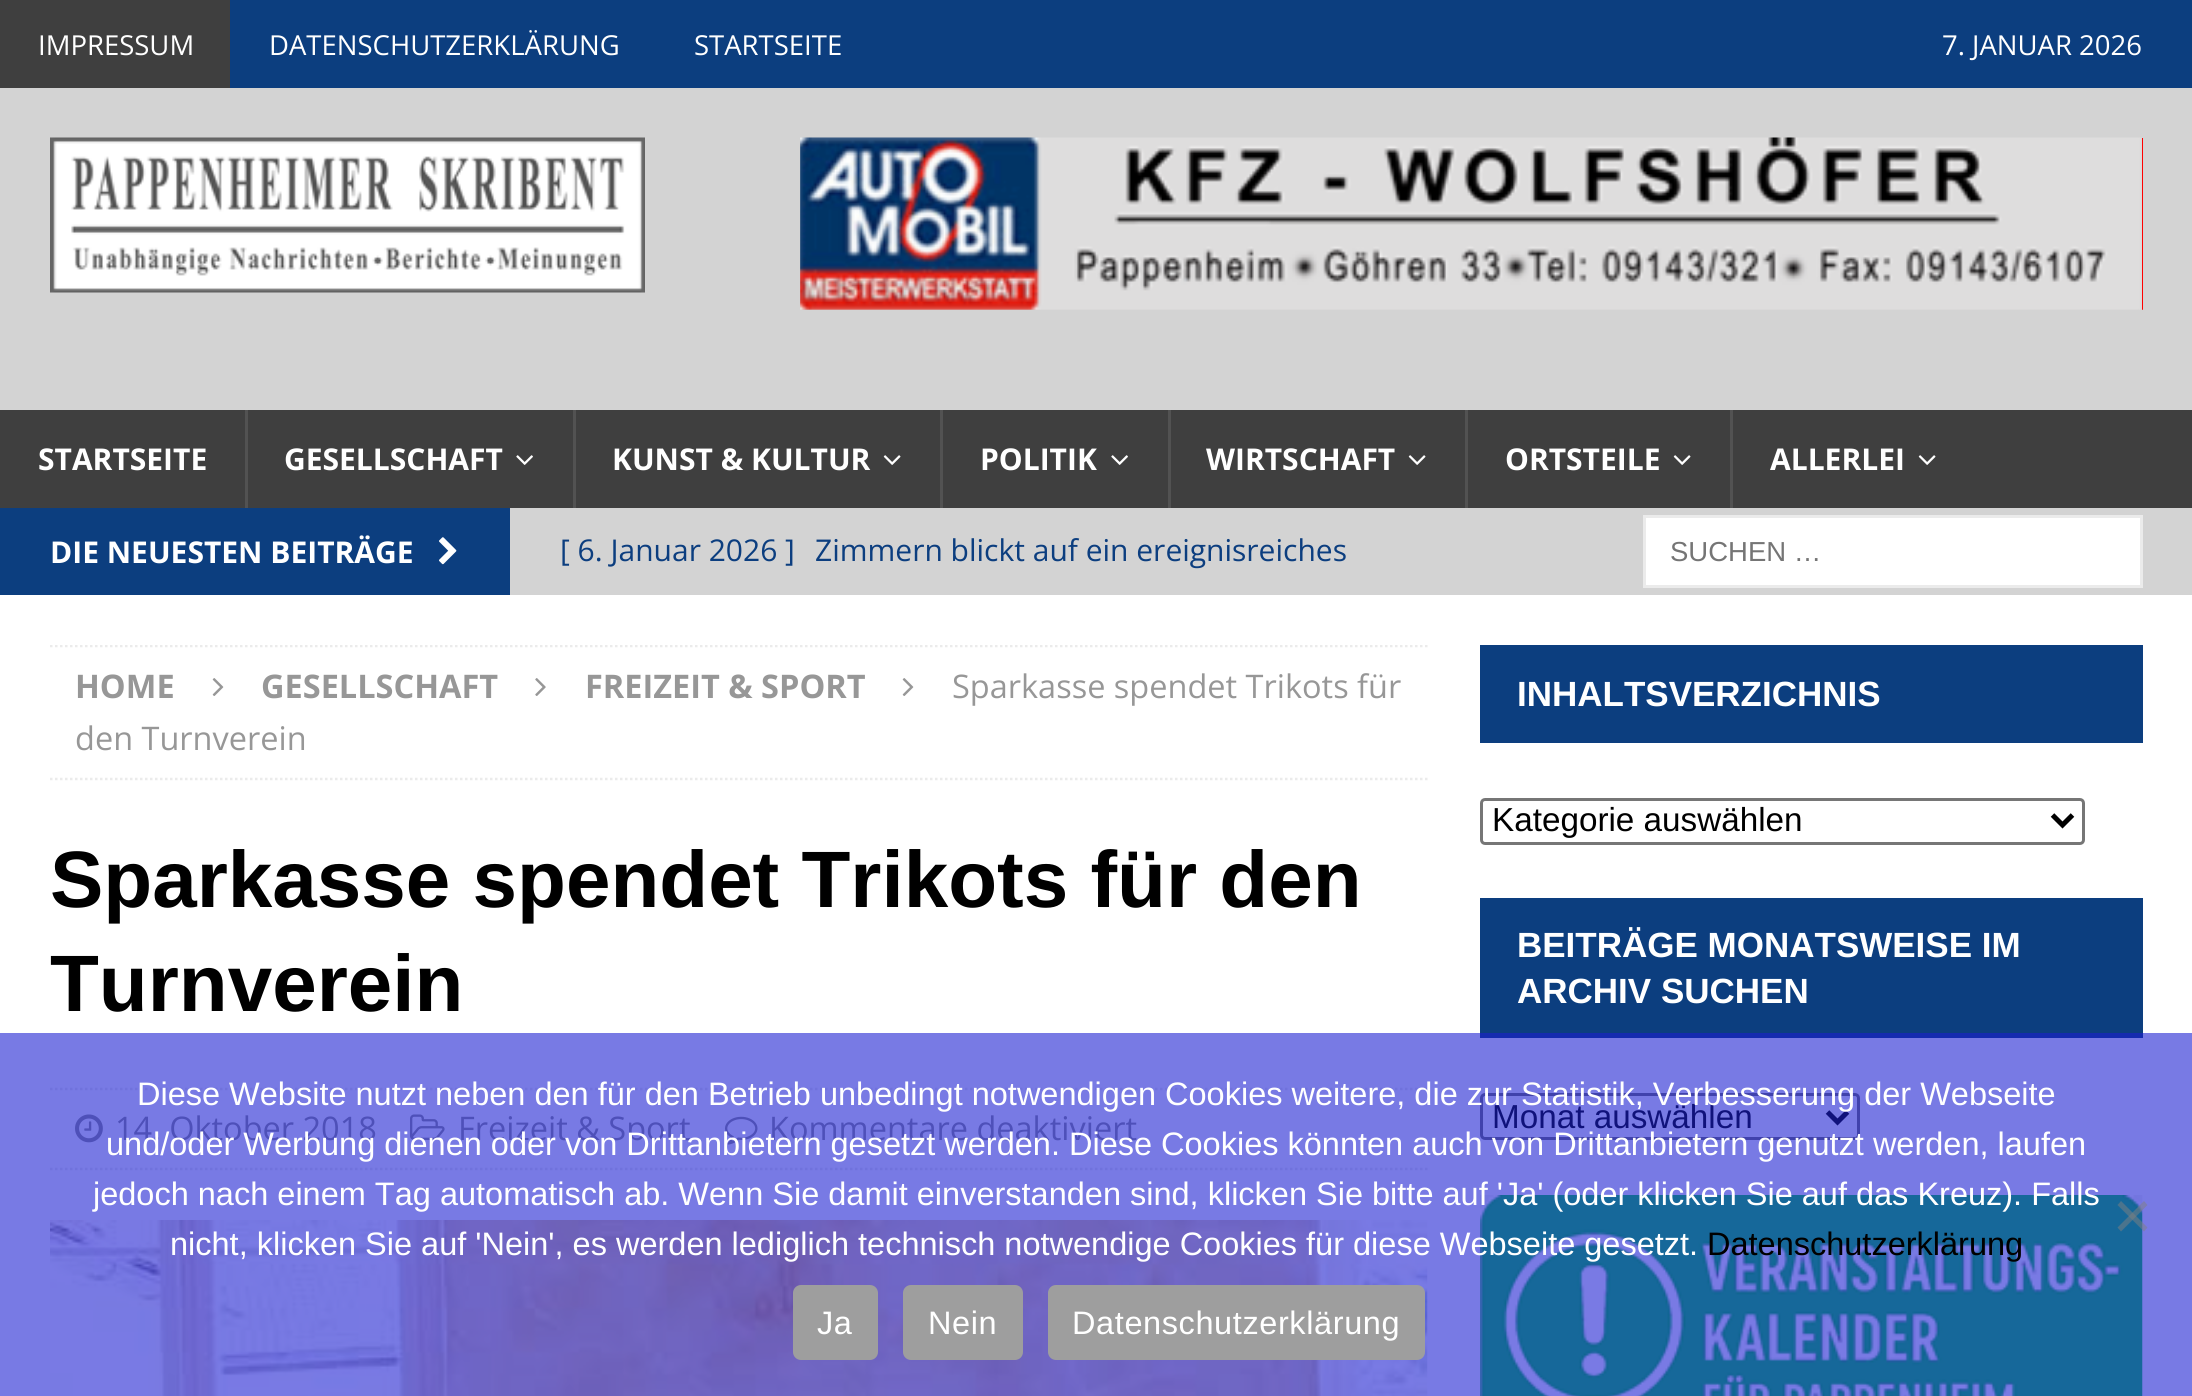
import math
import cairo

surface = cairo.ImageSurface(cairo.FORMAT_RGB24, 2192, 1396)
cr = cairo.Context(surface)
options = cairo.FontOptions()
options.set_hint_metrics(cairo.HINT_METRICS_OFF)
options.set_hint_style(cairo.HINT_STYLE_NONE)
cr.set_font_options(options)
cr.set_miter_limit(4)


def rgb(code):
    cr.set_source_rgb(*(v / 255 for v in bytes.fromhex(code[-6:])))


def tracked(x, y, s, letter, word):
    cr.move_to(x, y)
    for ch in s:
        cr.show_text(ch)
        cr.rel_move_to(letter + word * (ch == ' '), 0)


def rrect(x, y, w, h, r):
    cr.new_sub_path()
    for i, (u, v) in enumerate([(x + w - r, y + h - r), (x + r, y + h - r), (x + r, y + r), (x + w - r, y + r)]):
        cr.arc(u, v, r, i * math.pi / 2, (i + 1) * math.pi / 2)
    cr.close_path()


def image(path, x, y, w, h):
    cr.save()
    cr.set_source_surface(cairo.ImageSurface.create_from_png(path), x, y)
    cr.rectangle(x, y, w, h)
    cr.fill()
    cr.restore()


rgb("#d3d3d3")
cr.paint()
rgb("#0c3e7f")
cr.rectangle(230, 0, 1962, 88)
cr.fill()
rgb("#3f3f3f")
cr.rectangle(0, 0, 230, 88)
cr.fill()
image("img/1.png", 50, 137, 595, 156)
image("img/2.png", 800, 137, 1342, 173)
image("img/3.png", 2142, 138, 1, 172)
cr.rectangle(0, 410, 2192, 98)
cr.fill()
rgb("#525252")
cr.rectangle(245, 410, 3, 98)
cr.fill()
image("img/4.png", 516, 455, 17, 10)
cr.rectangle(573, 410, 3, 98)
cr.fill()
image("img/5.png", 883, 455, 18, 10)
cr.rectangle(940, 410, 3, 98)
cr.fill()
image("img/4.png", 1111, 455, 17, 10)
cr.rectangle(1168, 410, 3, 98)
cr.fill()
image("img/5.png", 1408, 455, 18, 10)
cr.rectangle(1465, 410, 3, 98)
cr.fill()
image("img/5.png", 1673, 455, 18, 10)
cr.rectangle(1730, 410, 3, 98)
cr.fill()
image("img/5.png", 1918, 455, 18, 10)
rgb("#0c3e7f")
cr.rectangle(0, 508, 510, 87)
cr.fill()
image("img/6.png", 439, 537, 18, 28)
rgb("#ffffff")
cr.rectangle(1644.5, 516.5, 497, 70)
cr.fill_preserve()
rgb("#ebebeb")
cr.set_line_width(3)
cr.stroke()
rgb("#ffffff")
cr.rectangle(0, 595, 2192, 438)
cr.fill()
rgb("#787ae4")
cr.rectangle(0, 1033, 2192, 363)
cr.fill()
cr.save()
cr.rectangle(50, 645, 1378, 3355)
cr.clip()
cr.new_path()
cr.move_to(50, 646)
cr.line_to(1427.5, 646)
rgb("#ebebeb")
cr.set_line_width(2.5)
cr.set_dash([2.5, 2.5])
cr.stroke()
cr.restore()
cr.new_path()
cr.move_to(50, 779)
cr.line_to(1427.5, 779)
rgb("#ebebeb")
cr.set_line_width(2.5)
cr.set_dash([2.5, 2.5])
cr.stroke()
image("img/7.png", 212, 678, 12, 18)
image("img/8.png", 535, 678, 11, 18)
image("img/7.png", 902, 678, 12, 18)
cr.new_path()
cr.move_to(50, 1089)
cr.line_to(1427.5, 1089)
rgb("#7072dc")
cr.stroke()
cr.new_path()
cr.move_to(50, 1169)
cr.line_to(1427.5, 1169)
cr.stroke()
image("img/9.png", 75, 1114, 28, 29)
image("img/10.png", 410, 1114, 35, 26)
image("img/11.png", 725, 1116, 33, 29)
image("img/12.png", 50, 1220, 1378, 176)
rgb("#0c3e7f")
cr.rectangle(1480, 645, 663, 98)
cr.fill()
rrect(1481.5, 799.5, 602, 44, 3.5)
rgb("#767676")
cr.set_line_width(3)
cr.set_dash([])
cr.stroke()
cr.new_path()
cr.move_to(2052.5, 815)
cr.line_to(2062.5, 825)
cr.line_to(2072.5, 815)
rgb("#000000")
cr.set_line_width(5)
cr.stroke()
rgb("#0c3e7f")
cr.rectangle(1480, 898, 663, 135)
cr.fill()
rgb("#152baf")
cr.rectangle(1480, 1033, 663, 5)
cr.fill()
rrect(1481.5, 1094.5, 377, 44, 3.5)
rgb("#4042ac")
cr.set_line_width(3)
cr.stroke()
cr.new_path()
cr.move_to(1827.5, 1112)
cr.line_to(1837.5, 1122)
cr.line_to(1847.5, 1112)
rgb("#10127b")
cr.set_line_width(5)
cr.stroke()
image("img/13.png", 1480, 1195, 663, 201)
cr.set_source_rgba(0.502, 0.502, 0.502, 0.5)
cr.new_path()
cr.move_to(2144, 1201)
cr.line_to(2147.5, 1205)
cr.line_to(2121, 1231.5)
cr.line_to(2117.5, 1227.5)
cr.close_path()
cr.fill()
cr.new_path()
cr.move_to(2117.5, 1205)
cr.line_to(2121, 1201)
cr.line_to(2147.5, 1227.5)
cr.line_to(2144, 1231.5)
cr.close_path()
cr.fill()
rgb("#9e9e9e")
rrect(793, 1285, 85, 75, 8)
cr.fill()
rrect(903, 1285, 120, 75, 8)
cr.fill()
rrect(1048, 1285, 377, 75, 8)
cr.fill()
cr.select_font_face("Open Sans")
cr.set_font_size(27.5)
rgb("#ffffff")
for x, y, s in [
    (38, 55, "IMPRESSUM"),
    (269, 55, "DATENSCHUTZERKLÄRUNG"),
    (694, 55, "STARTSEITE"),
    (1942, 55, "7. JANUAR 2026"),
]:
    cr.move_to(x, y)
    cr.show_text(s)
cr.select_font_face("Open Sans", cairo.FONT_SLANT_NORMAL, cairo.FONT_WEIGHT_BOLD)
cr.set_font_size(30)
for x, y, s in [
    (38, 470, "STARTSEITE"),
    (284, 470, "GESELLSCHAFT"),
    (612, 470, "KUNST & KULTUR"),
    (980, 470, "POLITIK"),
    (1206, 470, "WIRTSCHAFT"),
    (1505, 470, "ORTSTEILE"),
    (1770, 470, "ALLERLEI"),
    (50, 563, "DIE NEUESTEN BEITRÄGE"),
]:
    cr.move_to(x, y)
    cr.show_text(s)
cr.select_font_face("Open Sans")
rgb("#0c3e7f")
cr.move_to(560, 561)
cr.show_text("[ 6. Januar 2026 ]")
cr.move_to(815, 561)
cr.show_text("Zimmern blickt auf ein ereignisreiches")
cr.select_font_face("Liberation Sans")
cr.set_font_size(27.5)
rgb("#757575")
cr.move_to(1670, 561)
cr.show_text("SUCHEN …")
cr.select_font_face("Open Sans", cairo.FONT_SLANT_NORMAL, cairo.FONT_WEIGHT_BOLD)
cr.set_font_size(32.5)
rgb("#979797")
for x, y, s in [
    (75, 698, "HOME"),
    (261, 698, "GESELLSCHAFT"),
    (585, 698, "FREIZEIT & SPORT"),
]:
    cr.move_to(x, y)
    cr.show_text(s)
cr.select_font_face("Open Sans")
cr.move_to(952, 698)
cr.show_text("Sparkasse spendet Trikots für")
cr.move_to(75, 750)
cr.show_text("den Turnverein")
cr.select_font_face("Liberation Sans", cairo.FONT_SLANT_NORMAL, cairo.FONT_WEIGHT_BOLD)
cr.set_font_size(80)
rgb("#000000")
cr.move_to(50, 907)
cr.show_text("Sparkasse spendet Trikots für den")
cr.move_to(50, 1011)
cr.show_text("Turnverein")
cr.select_font_face("Open Sans")
cr.set_font_size(32.5)
rgb("#4e50b9")
for x, y, s in [
    (115, 1140, "14. Oktober 2018"),
    (458, 1140, "Freizeit & Sport"),
    (769, 1140, "Kommentare deaktiviert"),
]:
    cr.move_to(x, y)
    cr.show_text(s)
cr.select_font_face("Liberation Sans", cairo.FONT_SLANT_NORMAL, cairo.FONT_WEIGHT_BOLD)
cr.set_font_size(35)
rgb("#ffffff")
cr.move_to(1517, 706)
cr.show_text("INHALTSVERZICHNIS")
cr.select_font_face("Liberation Sans")
cr.set_font_size(33.25)
rgb("#000000")
cr.move_to(1492, 831)
cr.show_text("Kategorie auswählen")
cr.select_font_face("Liberation Sans", cairo.FONT_SLANT_NORMAL, cairo.FONT_WEIGHT_BOLD)
cr.set_font_size(35)
rgb("#ffffff")
cr.move_to(1517, 957)
cr.show_text("BEITRÄGE MONATSWEISE IM")
cr.move_to(1517, 1003)
cr.show_text("ARCHIV SUCHEN")
cr.select_font_face("Liberation Sans")
cr.set_font_size(33.25)
rgb("#10127b")
cr.move_to(1492, 1128)
cr.show_text("Monat auswählen")
cr.set_font_size(32.5)
rgb("#ffffff")
for x, y, s in [
    (137, 1105, "Diese Website nutzt neben den für den Betrieb unbedingt notwendigen Cookies weitere, die zur Statistik, Verbesserung der Webseite"),
    (106, 1155, "und/oder Werbung dienen oder von Drittanbietern gesetzt werden. Diese Cookies könnten auch von Drittanbietern genutzt werden, laufen"),
    (93, 1205, "jedoch nach einem Tag automatisch ab. Wenn Sie damit einverstanden sind, klicken Sie bitte auf 'Ja' (oder klicken Sie auf das Kreuz). Falls"),
    (170, 1255, "nicht, klicken Sie auf 'Nein', es werden lediglich technisch notwendige Cookies für diese Webseite gesetzt."),
]:
    cr.move_to(x, y)
    cr.show_text(s)
rgb("#000000")
cr.move_to(1707, 1255)
cr.show_text("Datenschutzerklärung")
rgb("#ffffff")
for x, y, s in [
    (817, 1334, "Ja"),
    (928, 1334, "Nein"),
    (1072, 1334, "Datenschutzerklärung"),
]:
    tracked(x, y, s, 0.6, 0)
surface.write_to_png("page.png")
